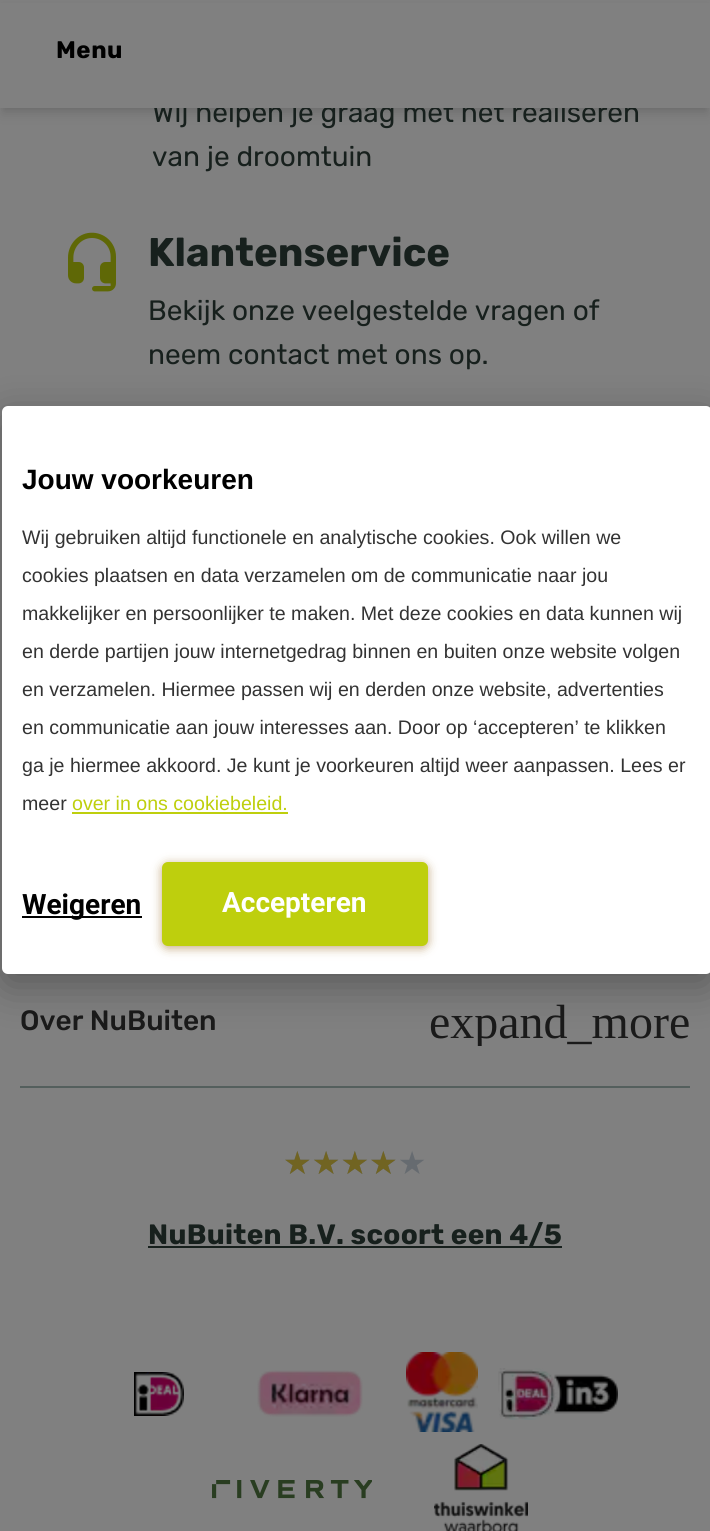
import math
import cairo

surface = cairo.ImageSurface(cairo.FORMAT_RGB24, 710, 1531)
cr = cairo.Context(surface)
options = cairo.FontOptions()
options.set_hint_metrics(cairo.HINT_METRICS_OFF)
options.set_hint_style(cairo.HINT_STYLE_NONE)
cr.set_font_options(options)
cr.set_miter_limit(4)


def rgb(code):
    cr.set_source_rgb(*(v / 255 for v in bytes.fromhex(code[-6:])))


def tracked(x, y, s, letter, word):
    cr.move_to(x, y)
    for ch in s:
        cr.show_text(ch)
        cr.rel_move_to(letter + word * (ch == ' '), 0)


def rrect(x, y, w, h, r):
    cr.new_sub_path()
    for i, (u, v) in enumerate([(x + w - r, y + h - r), (x + r, y + h - r), (x + r, y + r), (x + w - r, y + r)]):
        cr.arc(u, v, r, i * math.pi / 2, (i + 1) * math.pi / 2)
    cr.close_path()


def soft_shadow(x, y, w, h, r, blur, alpha):
    cr.push_group_with_content(cairo.CONTENT_ALPHA)
    cr.set_operator(cairo.OPERATOR_SOURCE)
    for i in range(15, -16, -2):
        e = blur * i / 6
        if min(w, h) + 2 * e > 0:
            cr.set_source_rgba(0, 0, 0, alpha * math.erfc((i - 1) / 8.5) / 2)
            rrect(x - e, y - e, w + 2 * e, h + 2 * e, max(0, min(r + e + blur * .6, min(w, h) / 2 + e)))
            cr.fill()
    cr.mask(cr.pop_group())


def image(path, x, y, w, h):
    cr.save()
    cr.set_source_surface(cairo.ImageSurface.create_from_png(path), x, y)
    cr.rectangle(x, y, w, h)
    cr.fill()
    cr.restore()


rgb("#808080")
cr.paint()
rgb("#000000")
soft_shadow(4, 8, 702, 100, 0, 4, 0.1)
soft_shadow(2, 10, 706, 104, 0, 6, 0.1)
image("img/1.png", 68, 232, 48, 60)
rgb("#545f5d")
cr.rectangle(20, 1086, 670, 2)
cr.fill()
rgb("#17201d")
cr.rectangle(148, 1246, 414, 2)
cr.fill()
image("img/2.png", 134, 1372, 50, 44)
image("img/3.png", 257, 1370, 106, 47)
image("img/4.png", 406, 1352, 72, 80)
image("img/5.png", 498, 1368, 120, 52)
image("img/6.png", 212, 1480, 160, 19)
image("img/7.png", 434, 1444, 94, 87)
cr.select_font_face("Rubik")
cr.set_font_size(28)
cr.move_to(152, 122)
cr.show_text("Wij helpen je graag met het realiseren")
rgb("#808080")
cr.rectangle(0, 3, 710, 105)
cr.fill()
cr.select_font_face("Rubik", cairo.FONT_SLANT_NORMAL, cairo.FONT_WEIGHT_BOLD)
cr.set_font_size(24)
rgb("#000000")
tracked(56, 58, "Menu", 0.5, 0)
cr.select_font_face("Rubik")
cr.set_font_size(28)
rgb("#17201d")
cr.move_to(152, 166)
cr.show_text("van je droomtuin")
cr.select_font_face("Rubik", cairo.FONT_SLANT_NORMAL, cairo.FONT_WEIGHT_BOLD)
cr.set_font_size(40)
cr.move_to(148, 266)
cr.show_text("Klantenservice")
cr.select_font_face("Rubik")
cr.set_font_size(28)
cr.move_to(148, 320)
cr.show_text("Bekijk onze veelgestelde vragen of")
cr.move_to(148, 364)
cr.show_text("neem contact met ons op.")
cr.select_font_face("Rubik Medium")
rgb("#1a1a1a")
cr.move_to(20, 1030)
cr.show_text("Over NuBuiten")
cr.select_font_face("Liberation Serif")
cr.set_font_size(48)
cr.move_to(429, 1038)
cr.show_text("expand_more")
rgb("#808080")
cr.rectangle(474, 1046, 12, 3)
cr.fill()
cr.select_font_face("DejaVu Sans")
cr.set_font_size(32)
rgb("#666b70")
cr.move_to(283, 1174)
cr.show_text("★★★★★")
rgb("#716422")
cr.move_to(283, 1174)
cr.show_text("★★★★")
cr.select_font_face("Rubik", cairo.FONT_SLANT_NORMAL, cairo.FONT_WEIGHT_BOLD)
cr.set_font_size(28)
rgb("#17201d")
tracked(148, 1244, "NuBuiten B.V. scoort een 4/5", 0.3, 0)
rgb("#000000")
soft_shadow(2, 418, 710, 568, 6, 20, 0.3)
rgb("#ffffff")
rrect(2, 406, 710, 568, 6)
cr.fill()
cr.select_font_face("Liberation Sans", cairo.FONT_SLANT_NORMAL, cairo.FONT_WEIGHT_BOLD)
rgb("#000000")
cr.move_to(22, 489)
cr.show_text("Jouw voorkeuren")
cr.select_font_face("Liberation Sans")
cr.set_font_size(19.6)
rgb("#333333")
for x, y, s in [
    (22, 544, "Wij gebruiken altijd functionele en analytische cookies. Ook willen we"),
    (22, 582, "cookies plaatsen en data verzamelen om de communicatie naar jou"),
    (22, 620, "makkelijker en persoonlijker te maken. Met deze cookies en data kunnen wij"),
    (22, 658, "en derde partijen jouw internetgedrag binnen en buiten onze website volgen"),
    (22, 696, "en verzamelen. Hiermee passen wij en derden onze website, advertenties"),
    (22, 734, "en communicatie aan jouw interesses aan. Door op ‘accepteren’ te klikken"),
    (22, 772, "ga je hiermee akkoord. Je kunt je voorkeuren altijd weer aanpassen. Lees er"),
    (22, 810, "meer"),
]:
    cr.move_to(x, y)
    cr.show_text(s)
rgb("#becf0d")
cr.move_to(72, 810)
cr.show_text("over in ons cookiebeleid.")
cr.rectangle(72, 812, 216, 2)
cr.fill()
rgb("#000000")
cr.rectangle(22, 916, 120, 2)
cr.fill()
cr.select_font_face("Roboto", cairo.FONT_SLANT_NORMAL, cairo.FONT_WEIGHT_BOLD)
cr.set_font_size(28)
cr.move_to(22, 914)
cr.show_text("Weigeren")
rgb("#8b5300")
soft_shadow(162, 864, 266, 84, 6, 5, 0.5)
rgb("#becf0d")
rrect(162, 862, 266, 84, 6)
cr.fill()
rgb("#ffffff")
cr.move_to(222, 912)
cr.show_text("Accepteren")
surface.write_to_png("page.png")
